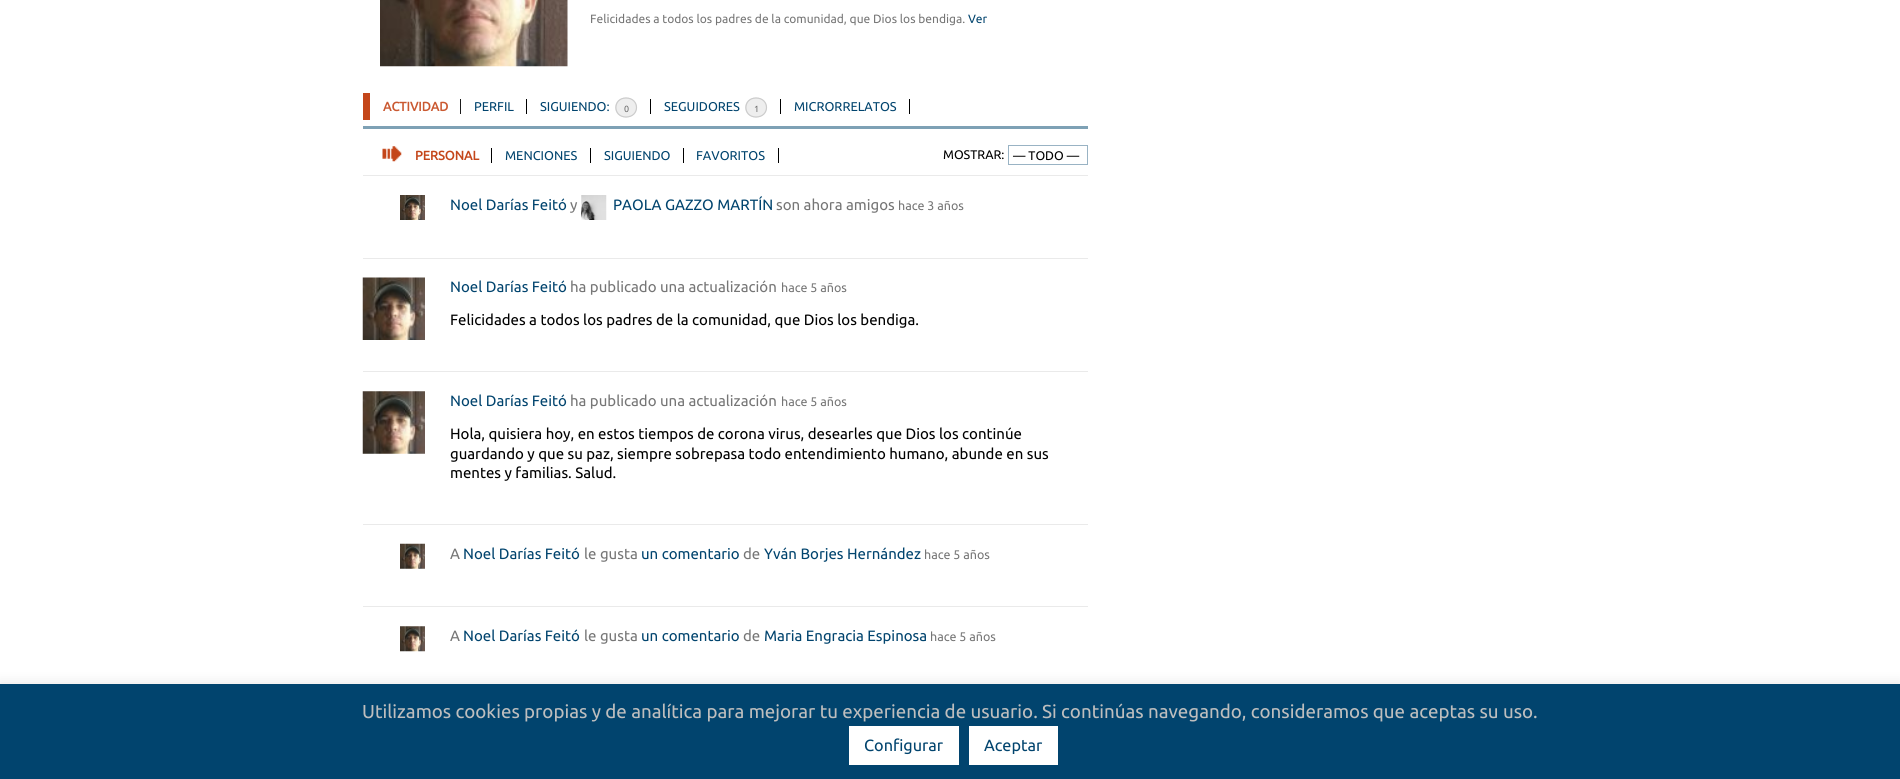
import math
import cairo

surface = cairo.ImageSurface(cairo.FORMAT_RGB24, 1900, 779)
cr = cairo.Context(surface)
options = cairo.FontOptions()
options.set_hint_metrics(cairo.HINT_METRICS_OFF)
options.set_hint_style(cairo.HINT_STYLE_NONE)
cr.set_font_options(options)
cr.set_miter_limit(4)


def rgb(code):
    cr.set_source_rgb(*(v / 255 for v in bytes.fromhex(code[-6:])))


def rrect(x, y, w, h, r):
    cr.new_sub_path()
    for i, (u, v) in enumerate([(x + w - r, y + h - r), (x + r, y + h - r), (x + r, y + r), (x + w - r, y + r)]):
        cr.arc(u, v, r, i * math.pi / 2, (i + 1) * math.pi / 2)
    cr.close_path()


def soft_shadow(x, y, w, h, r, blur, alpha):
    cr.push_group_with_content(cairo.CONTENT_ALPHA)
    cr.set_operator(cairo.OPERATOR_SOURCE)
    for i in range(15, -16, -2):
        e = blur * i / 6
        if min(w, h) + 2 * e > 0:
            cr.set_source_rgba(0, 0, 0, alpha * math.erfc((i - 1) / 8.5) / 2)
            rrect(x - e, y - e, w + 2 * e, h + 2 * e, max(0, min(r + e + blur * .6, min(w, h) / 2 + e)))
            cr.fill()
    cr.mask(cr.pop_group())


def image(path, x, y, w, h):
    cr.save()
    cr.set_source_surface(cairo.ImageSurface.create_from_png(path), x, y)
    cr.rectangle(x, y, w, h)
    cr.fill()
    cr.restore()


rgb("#ffffff")
cr.paint()
image("img/1.png", 380, 0, 188, 67)
for x, y, w, h, color in [
    (363, 126, 725, 3, "#7ea1b5"),
    (363, 93, 7, 27, "#c4461a"),
    (460, 99, 1, 15, "#1a1a1a"),
    (526, 99, 1, 15, "#000000"),
    (650, 99, 1, 15, "#000000"),
]:
    rgb(color)
    cr.rectangle(x, y, w, h)
    cr.fill()
rgb("#eeeeee")
cr.new_path()
cr.move_to(626, 97.5)
cr.curve_to(632, 97.5, 637, 102, 637, 107.5)
cr.curve_to(637, 113, 632, 117.5, 626, 117.5)
cr.curve_to(620, 117.5, 615, 113, 615, 107.5)
cr.curve_to(615, 102, 620, 97.5, 626, 97.5)
cr.close_path()
cr.fill()
cr.new_path()
cr.move_to(626, 98)
cr.curve_to(640, 98, 640, 117, 626, 117)
cr.curve_to(612.5, 117, 612.5, 98, 626, 98)
cr.close_path()
rgb("#cccccc")
cr.set_line_width(1.2)
cr.stroke()
rgb("#000000")
cr.rectangle(780, 99, 1, 15)
cr.fill()
rgb("#eeeeee")
cr.new_path()
cr.move_to(756, 97.5)
cr.curve_to(762, 97.5, 767, 102, 767, 107.5)
cr.curve_to(767, 113, 762, 117.5, 756, 117.5)
cr.curve_to(750, 117.5, 745, 113, 745, 107.5)
cr.curve_to(745, 102, 750, 97.5, 756, 97.5)
cr.close_path()
cr.fill()
cr.new_path()
cr.move_to(756, 98)
cr.curve_to(770, 98, 770, 117, 756, 117)
cr.curve_to(742.5, 117, 742.5, 98, 756, 98)
cr.close_path()
rgb("#cccccc")
cr.stroke()
rgb("#000000")
cr.rectangle(909, 99, 1, 15)
cr.fill()
image("img/2.png", 382, 146, 20, 16)
for x, y, w, h, color in [
    (491, 148, 1, 15, "#000000"),
    (590, 148, 1, 15, "#000000"),
    (683, 148, 1, 15, "#000000"),
    (778, 148, 1, 15, "#000000"),
]:
    rgb(color)
    cr.rectangle(x, y, w, h)
    cr.fill()
cr.rectangle(1008.5, 145.5, 79, 19)
rgb("#99b3c4")
cr.set_line_width(1)
cr.stroke()
rgb("#eaeaea")
cr.rectangle(363, 175, 725, 1)
cr.fill()
cr.rectangle(363, 258, 725, 1)
cr.fill()
image("img/3.png", 400, 195, 25, 25)
image("img/4.png", 581, 195, 26, 25)
cr.rectangle(363, 371, 725, 1)
cr.fill()
image("img/5.png", 362, 277, 63, 63)
cr.rectangle(363, 524, 725, 1)
cr.fill()
image("img/6.png", 362, 391, 63, 63)
cr.rectangle(363, 606, 725, 1)
cr.fill()
image("img/7.png", 400, 543, 25, 26)
image("img/8.png", 400, 626, 25, 26)
rgb("#acabab")
soft_shadow(0, 683, 1900, 96, 0, 6, 0.3)
for x, y, w, h, color in [
    (0, 684, 1900, 95, "#01446e"),
    (849, 726, 110, 39, "#ffffff"),
    (969, 726, 89, 39, "#ffffff"),
]:
    rgb(color)
    cr.rectangle(x, y, w, h)
    cr.fill()
cr.select_font_face("Ubuntu")
cr.set_font_size(12)
rgb("#767676")
cr.move_to(590, 23)
cr.show_text("Felicidades a todos los padres de la comunidad, que Dios los bendiga.")
rgb("#01446e")
cr.move_to(968, 23)
cr.show_text("Ver")
cr.select_font_face("Ubuntu", cairo.FONT_SLANT_NORMAL, cairo.FONT_WEIGHT_BOLD)
cr.set_font_size(12.75)
rgb("#ca5931")
cr.move_to(383, 111)
cr.show_text("ACTIVIDAD")
cr.select_font_face("Ubuntu")
rgb("#01446e")
cr.move_to(474, 111)
cr.show_text("PERFIL")
cr.move_to(540, 111)
cr.show_text("SIGUIENDO:")
cr.set_font_size(9)
rgb("#6c6c6c")
cr.move_to(624, 112)
cr.show_text("0")
cr.set_font_size(12.75)
rgb("#01446e")
cr.move_to(664, 111)
cr.show_text("SEGUIDORES")
cr.set_font_size(9)
rgb("#6c6c6c")
cr.move_to(754, 112)
cr.show_text("1")
cr.set_font_size(12.75)
rgb("#01446e")
cr.move_to(794, 111)
cr.show_text("MICRORRELATOS")
cr.select_font_face("Ubuntu", cairo.FONT_SLANT_NORMAL, cairo.FONT_WEIGHT_BOLD)
rgb("#c4461a")
cr.move_to(415, 160)
cr.show_text("PERSONAL")
cr.select_font_face("Ubuntu")
rgb("#01446e")
for x, y, s in [
    (505, 160, "MENCIONES"),
    (604, 160, "SIGUIENDO"),
    (696, 160, "FAVORITOS"),
]:
    cr.move_to(x, y)
    cr.show_text(s)
cr.set_font_size(12.5)
rgb("#000000")
cr.move_to(943, 159)
cr.show_text("MOSTRAR:")
cr.move_to(1013, 160)
cr.show_text("— TODO —")
cr.set_font_size(15)
rgb("#01446e")
cr.move_to(450, 210)
cr.show_text("Noel Darías Feitó")
rgb("#767676")
cr.move_to(570, 210)
cr.show_text("y")
rgb("#01446e")
cr.move_to(613, 210)
cr.show_text("PAOLA GAZZO MARTÍN")
rgb("#767676")
cr.move_to(776, 210)
cr.show_text("son ahora amigos")
cr.set_font_size(12.5)
cr.move_to(898, 210)
cr.show_text("hace 3 años")
cr.set_font_size(15)
rgb("#01446e")
cr.move_to(450, 292)
cr.show_text("Noel Darías Feitó")
rgb("#767676")
cr.move_to(570, 292)
cr.show_text("ha publicado una actualización")
cr.set_font_size(12.5)
cr.move_to(781, 292)
cr.show_text("hace 5 años")
cr.set_font_size(15)
rgb("#000000")
cr.move_to(450, 325)
cr.show_text("Felicidades a todos los padres de la comunidad, que Dios los bendiga.")
rgb("#01446e")
cr.move_to(450, 406)
cr.show_text("Noel Darías Feitó")
rgb("#767676")
cr.move_to(570, 406)
cr.show_text("ha publicado una actualización")
cr.set_font_size(12.5)
cr.move_to(781, 406)
cr.show_text("hace 5 años")
cr.set_font_size(15)
rgb("#000000")
for x, y, s in [
    (450, 439, "Hola, quisiera hoy, en estos tiempos de corona virus, desearles que Dios los continúe"),
    (450, 459, "guardando y que su paz, siempre sobrepasa todo entendimiento humano, abunde en sus"),
    (450, 478, "mentes y familias. Salud."),
]:
    cr.move_to(x, y)
    cr.show_text(s)
rgb("#767676")
cr.move_to(450, 559)
cr.show_text("A")
rgb("#01446e")
cr.move_to(463, 559)
cr.show_text("Noel Darías Feitó")
rgb("#767676")
cr.move_to(584, 559)
cr.show_text("le gusta")
rgb("#01446e")
cr.move_to(641, 559)
cr.show_text("un comentario")
rgb("#767676")
cr.move_to(743, 559)
cr.show_text("de")
rgb("#01446e")
cr.move_to(764, 559)
cr.show_text("Yván Borjes Hernández")
cr.set_font_size(12.5)
rgb("#767676")
cr.move_to(924, 559)
cr.show_text("hace 5 años")
cr.set_font_size(15)
cr.move_to(450, 641)
cr.show_text("A")
rgb("#01446e")
cr.move_to(463, 641)
cr.show_text("Noel Darías Feitó")
rgb("#767676")
cr.move_to(584, 641)
cr.show_text("le gusta")
rgb("#01446e")
cr.move_to(641, 641)
cr.show_text("un comentario")
rgb("#767676")
cr.move_to(743, 641)
cr.show_text("de")
rgb("#01446e")
cr.move_to(764, 641)
cr.show_text("Maria Engracia Espinosa")
cr.set_font_size(12.5)
rgb("#767676")
cr.move_to(930, 641)
cr.show_text("hace 5 años")
cr.set_font_size(18.75)
rgb("#bebebe")
cr.move_to(362, 718)
cr.show_text("Utilizamos cookies propias y de analítica para mejorar tu experiencia de usuario. Si continúas navegando, consideramos que aceptas su uso.")
cr.set_font_size(16.25)
rgb("#01446e")
cr.move_to(864, 751)
cr.show_text("Configurar")
cr.move_to(984, 751)
cr.show_text("Aceptar")
surface.write_to_png("page.png")
